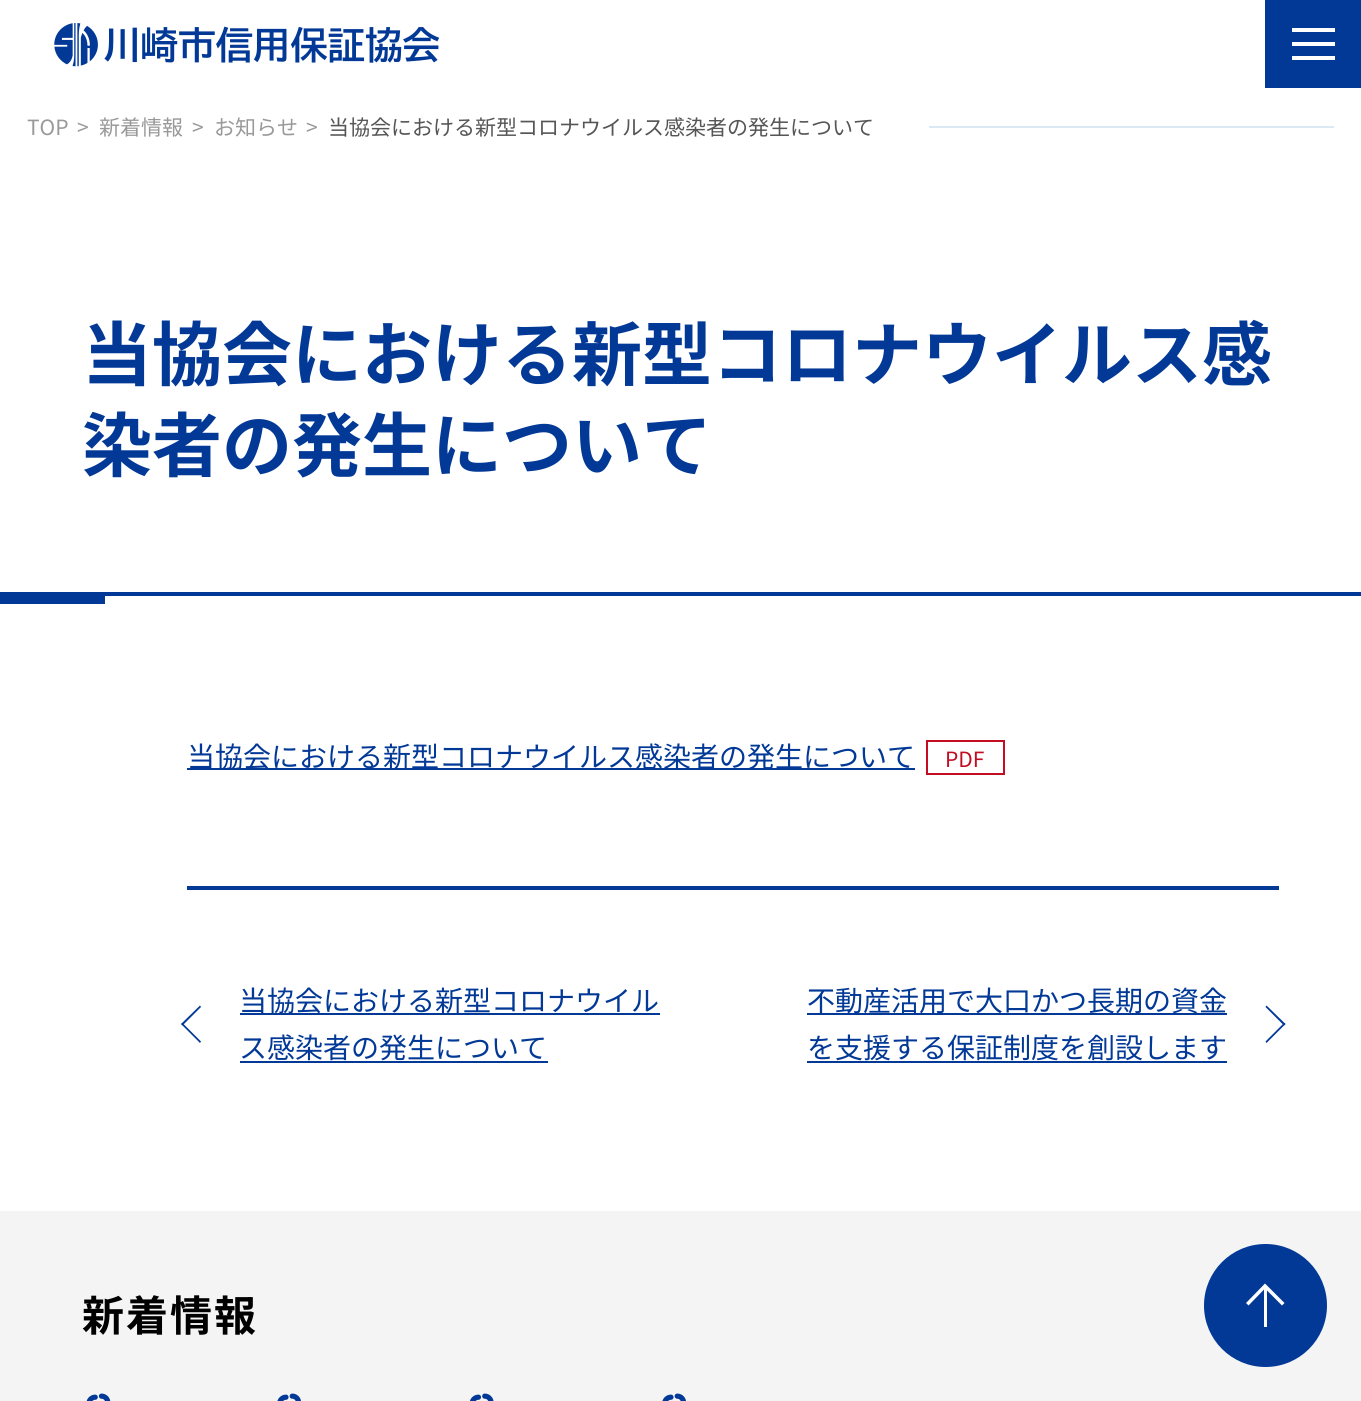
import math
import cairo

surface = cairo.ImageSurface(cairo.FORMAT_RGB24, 1361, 1401)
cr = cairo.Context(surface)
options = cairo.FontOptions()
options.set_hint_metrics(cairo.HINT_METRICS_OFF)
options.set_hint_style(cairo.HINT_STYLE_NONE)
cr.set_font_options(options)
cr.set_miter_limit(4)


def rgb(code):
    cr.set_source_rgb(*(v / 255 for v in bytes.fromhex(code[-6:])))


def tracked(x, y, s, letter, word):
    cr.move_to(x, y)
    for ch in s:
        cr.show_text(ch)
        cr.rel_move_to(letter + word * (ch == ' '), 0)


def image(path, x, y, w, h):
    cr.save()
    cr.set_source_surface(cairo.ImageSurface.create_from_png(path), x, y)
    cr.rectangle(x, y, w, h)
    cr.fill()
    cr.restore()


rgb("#ffffff")
cr.paint()
image("img/1.png", 54, 23, 385, 44)
for x, y, w, h, color in [
    (1265, 0, 96, 88, "#023997"),
    (1292, 28, 43, 4, "#ffffff"),
    (1292, 56, 43, 4, "#ffffff"),
    (1292, 42, 43, 4, "#ffffff"),
    (929, 126, 405, 2, "#dae9f2"),
    (0, 592, 1361, 4, "#023997"),
    (0, 596, 105, 8, "#023997"),
    (187, 886, 1092, 4, "#023997"),
    (187, 768, 728, 2, "#023997"),
]:
    rgb(color)
    cr.rectangle(x, y, w, h)
    cr.fill()
cr.rectangle(927, 741, 77, 33)
rgb("#c30d23")
cr.stroke()
rgb("#023997")
cr.new_path()
cr.move_to(200, 1043)
cr.line_to(181, 1024)
cr.line_to(182.5, 1023)
cr.line_to(201, 1041.5)
cr.close_path()
cr.fill()
cr.new_path()
cr.move_to(182.5, 1025.5)
cr.line_to(181, 1024)
cr.line_to(200, 1005.5)
cr.line_to(201, 1007)
cr.close_path()
cr.fill()
for x, y, w, h, color in [
    (240, 1013, 420, 2, "#023997"),
    (240, 1061, 308, 2, "#023997"),
    (807, 1013, 420, 2, "#023997"),
    (807, 1061, 420, 2, "#023997"),
]:
    rgb(color)
    cr.rectangle(x, y, w, h)
    cr.fill()
cr.new_path()
cr.move_to(1266.5, 1005.5)
cr.line_to(1285.5, 1024)
cr.line_to(1284, 1025.5)
cr.line_to(1265.5, 1007)
cr.close_path()
cr.fill()
cr.new_path()
cr.move_to(1284, 1023)
cr.line_to(1285.5, 1024)
cr.line_to(1266.5, 1043)
cr.line_to(1265.5, 1041.5)
cr.close_path()
cr.fill()
rgb("#f4f4f4")
cr.rectangle(0, 1211, 1361, 190)
cr.fill()
image("img/2.png", 86, 1393, 25, 8)
image("img/3.png", 277, 1393, 24, 8)
image("img/4.png", 470, 1393, 24, 8)
image("img/3.png", 662, 1393, 24, 8)
rgb("#023997")
cr.arc(1265.5, 1305.5, 61.5, 0, 2 * math.pi)
cr.fill()
rgb("#ffffff")
cr.new_path()
cr.move_to(1282, 1305.5)
cr.line_to(1265, 1288.5)
cr.line_to(1248.5, 1305.5)
cr.line_to(1246, 1303)
cr.line_to(1265, 1283.5)
cr.line_to(1284.5, 1303)
cr.close_path()
cr.fill()
cr.rectangle(1264, 1286, 3, 41)
cr.fill()
cr.select_font_face("Noto Sans JP")
cr.set_font_size(21)
rgb("#999999")
for x, y, s in [
    (27, 135, "TOP"),
    (77, 135, ">"),
    (99, 135, "新着情報"),
    (192, 135, ">"),
    (214, 135, "お知らせ"),
    (306, 135, ">"),
]:
    cr.move_to(x, y)
    cr.show_text(s)
rgb("#565656")
cr.move_to(328, 135)
cr.show_text("当協会における新型コロナウイルス感染者の発生について")
cr.select_font_face("Noto Sans JP", cairo.FONT_SLANT_NORMAL, cairo.FONT_WEIGHT_BOLD)
cr.set_font_size(70)
rgb("#023997")
cr.move_to(82, 380)
cr.show_text("当協会における新型コロナウイルス感")
cr.move_to(82, 471)
cr.show_text("染者の発生について")
cr.select_font_face("Noto Sans JP")
cr.set_font_size(28)
cr.move_to(187, 767)
cr.show_text("当協会における新型コロナウイルス感染者の発生について")
cr.set_font_size(21)
rgb("#c30d23")
cr.move_to(945, 767)
cr.show_text("PDF")
cr.set_font_size(28)
rgb("#023997")
for x, y, s in [
    (239, 1011, "当協会における新型コロナウイル"),
    (239, 1058, "ス感染者の発生について"),
    (807, 1011, "不動産活用で大口かつ長期の資金"),
    (807, 1058, "を支援する保証制度を創設します"),
]:
    cr.move_to(x, y)
    cr.show_text(s)
cr.select_font_face("Noto Sans JP", cairo.FONT_SLANT_NORMAL, cairo.FONT_WEIGHT_BOLD)
cr.set_font_size(42)
rgb("#000000")
tracked(82, 1331, "新着情報", 2, 0)
surface.write_to_png("page.png")
